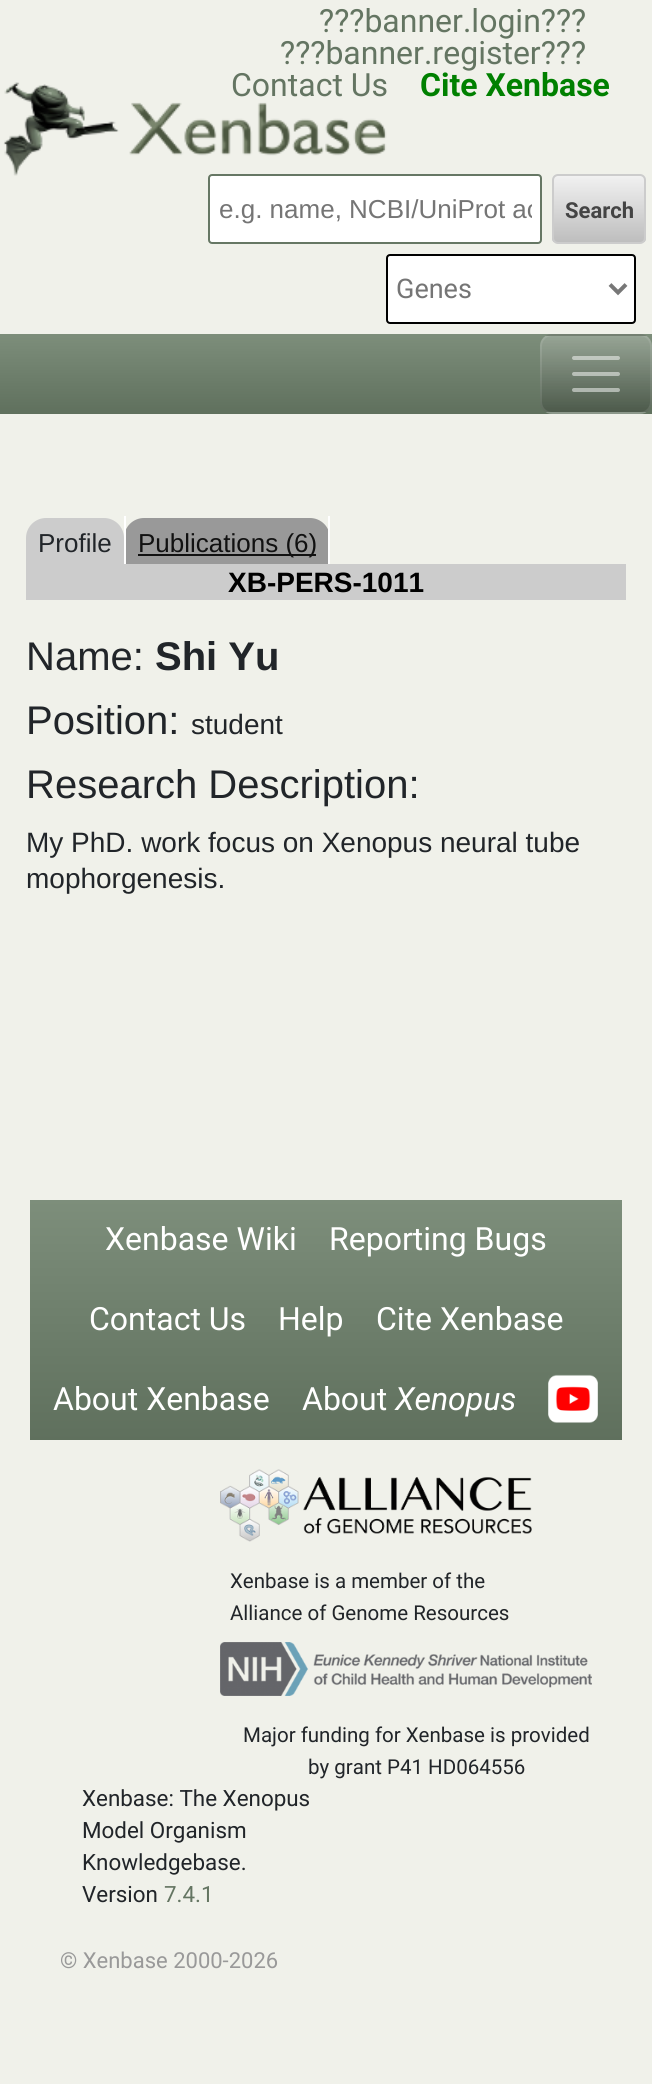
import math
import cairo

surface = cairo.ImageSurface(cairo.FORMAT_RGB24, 652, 2084)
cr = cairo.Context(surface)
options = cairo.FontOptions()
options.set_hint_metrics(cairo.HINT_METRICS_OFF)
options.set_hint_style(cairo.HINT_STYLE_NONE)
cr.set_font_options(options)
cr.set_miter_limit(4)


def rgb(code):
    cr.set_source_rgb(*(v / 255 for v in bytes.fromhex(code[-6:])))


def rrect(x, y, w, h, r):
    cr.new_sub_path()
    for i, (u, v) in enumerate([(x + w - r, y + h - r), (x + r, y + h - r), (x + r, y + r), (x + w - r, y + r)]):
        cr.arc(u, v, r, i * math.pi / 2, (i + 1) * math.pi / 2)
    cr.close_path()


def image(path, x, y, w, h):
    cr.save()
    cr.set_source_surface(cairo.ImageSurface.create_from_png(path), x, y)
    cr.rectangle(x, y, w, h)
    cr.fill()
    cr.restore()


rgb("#f0f1ea")
cr.paint()
rgb("#ffffff")
rrect(209, 175, 332, 68, 3)
cr.fill_preserve()
rgb("#667764")
cr.stroke()
cr.save()
rrect(552, 174, 94, 70, 6)
cr.clip()
gradient = cairo.LinearGradient(599, 176, 599, 242)
gradient.add_color_stop_rgba(0, 0.945, 0.945, 0.945, 1)
gradient.add_color_stop_rgba(1, 0.745, 0.745, 0.745, 1)
cr.set_source(gradient)
cr.rectangle(552, 176, 94, 66)
cr.fill()
cr.restore()
rrect(553, 175, 92, 68, 5)
rgb("#cccccc")
cr.stroke()
rgb("#ffffff")
rrect(387, 255, 248, 68, 3)
cr.fill_preserve()
rgb("#000000")
cr.stroke()
cr.new_path()
cr.move_to(610, 284.5)
cr.line_to(618, 292.5)
cr.line_to(626, 284.5)
rgb("#777777")
cr.set_line_width(4)
cr.stroke()
gradient = cairo.LinearGradient(326, 334, 326, 414)
gradient.add_color_stop_rgba(0, 0.49, 0.557, 0.482, 1)
gradient.add_color_stop_rgba(1, 0.373, 0.439, 0.365, 1)
cr.set_source(gradient)
cr.rectangle(0, 334, 652, 80)
cr.fill()
cr.save()
rrect(540, 334, 112, 80, 12)
cr.clip()
gradient = cairo.LinearGradient(596, 260, 596, 336)
gradient.add_color_stop_rgba(0, 0.592, 0.643, 0.584, 1)
gradient.add_color_stop_rgba(1, 0.392, 0.443, 0.384, 1)
cr.set_source(gradient)
cr.rectangle(540, 334, 112, 2)
cr.fill()
gradient = cairo.LinearGradient(596, 336, 596, 412)
gradient.add_color_stop_rgba(0, 1, 1, 1, 0.2)
gradient.add_color_stop_rgba(1, 0, 0, 0, 0.2)
cr.set_source(gradient)
cr.rectangle(540, 336, 112, 76)
cr.fill()
gradient = cairo.LinearGradient(596, 412, 596, 488)
gradient.add_color_stop_rgba(0, 0.498, 0.553, 0.494, 1)
gradient.add_color_stop_rgba(1, 0.298, 0.353, 0.294, 1)
cr.set_source(gradient)
cr.rectangle(540, 412, 112, 2)
cr.fill()
cr.restore()
rrect(541, 335, 110, 78, 11)
cr.set_source_rgba(1, 1, 1, 0.1)
cr.set_line_width(2)
cr.stroke()
cr.new_path()
cr.move_to(574, 358)
cr.line_to(618, 358)
cr.move_to(574, 374)
cr.line_to(618, 374)
cr.move_to(574, 390)
cr.line_to(618, 390)
cr.set_source_rgba(1, 1, 1, 0.5)
cr.set_line_width(4)
cr.set_line_cap(cairo.LINE_CAP_ROUND)
cr.stroke()
rgb("#cccccc")
cr.new_path()
cr.move_to(46, 518)
cr.line_to(104, 518)
cr.curve_to(115, 518, 124, 527, 124, 538)
cr.line_to(124, 568)
cr.line_to(26, 568)
cr.line_to(26, 538)
cr.curve_to(26, 527, 35, 518, 46, 518)
cr.close_path()
cr.fill()
rgb("#999999")
cr.new_path()
cr.move_to(144, 518)
cr.line_to(310, 518)
cr.curve_to(321, 518, 330, 527, 330, 538)
cr.line_to(330, 568)
cr.line_to(124, 568)
cr.line_to(124, 538)
cr.curve_to(124, 527, 133, 518, 144, 518)
cr.close_path()
cr.fill()
for x, y, w, h, color in [
    (124, 516, 2, 52, "#ffffff"),
    (328, 516, 2, 52, "#ffffff"),
    (138, 554, 178, 2, "#111111"),
    (26, 564, 600, 36, "#cccccc"),
]:
    rgb(color)
    cr.rectangle(x, y, w, h)
    cr.fill()
gradient = cairo.LinearGradient(326, 1200, 326, 1440)
gradient.add_color_stop_rgba(0, 0.49, 0.557, 0.482, 1)
gradient.add_color_stop_rgba(1, 0.373, 0.439, 0.365, 1)
cr.set_source(gradient)
cr.rectangle(30, 1200, 592, 240)
cr.fill()
image("img/2.png", 548, 1374, 50, 49)
image("img/3.png", 220, 1469, 312, 73)
image("img/4.png", 220, 1642, 372, 54)
cr.select_font_face("Roboto")
cr.set_font_size(32)
rgb("#647562")
for x, y, s in [
    (319, 32, "???banner.login???"),
    (280, 64, "???banner.register???"),
    (231, 96, "Contact Us"),
]:
    cr.move_to(x, y)
    cr.show_text(s)
cr.select_font_face("Roboto", cairo.FONT_SLANT_NORMAL, cairo.FONT_WEIGHT_BOLD)
rgb("#008000")
cr.move_to(420, 96)
cr.show_text("Cite Xenbase")
image("img/1.png", 3, 82, 384, 94)
cr.save()
cr.rectangle(218, 194, 314, 30)
cr.clip()
cr.select_font_face("Liberation Sans")
cr.set_font_size(26)
rgb("#757575")
cr.move_to(219, 218)
cr.show_text("e.g. name, NCBI/UniProt ac")
cr.restore()
cr.set_font_size(22)
rgb("#444444")
cr.move_to(565, 218)
cr.show_text("Search")
cr.select_font_face("Roboto")
cr.set_font_size(27)
rgb("#757575")
cr.move_to(396, 298)
cr.show_text("Genes")
cr.select_font_face("Liberation Sans")
cr.set_font_size(26)
rgb("#212529")
cr.move_to(38, 552)
cr.show_text("Profile")
rgb("#111111")
cr.move_to(138, 552)
cr.show_text("Publications (6)")
cr.select_font_face("Liberation Sans", cairo.FONT_SLANT_NORMAL, cairo.FONT_WEIGHT_BOLD)
cr.set_font_size(28)
rgb("#000000")
cr.move_to(228, 592)
cr.show_text("XB-PERS-1011")
cr.select_font_face("Liberation Sans")
cr.set_font_size(40)
rgb("#212529")
cr.move_to(26, 670)
cr.show_text("Name:")
cr.select_font_face("Liberation Sans", cairo.FONT_SLANT_NORMAL, cairo.FONT_WEIGHT_BOLD)
cr.move_to(155, 670)
cr.show_text("Shi Yu")
cr.select_font_face("Liberation Sans")
cr.move_to(26, 734)
cr.show_text("Position:")
cr.set_font_size(28)
cr.move_to(191, 734)
cr.show_text("student")
cr.set_font_size(40)
cr.move_to(26, 798)
cr.show_text("Research Description:")
cr.set_font_size(28)
cr.move_to(26, 852)
cr.show_text("My PhD. work focus on Xenopus neural tube")
cr.move_to(26, 888)
cr.show_text("mophorgenesis.")
cr.select_font_face("Roboto")
cr.set_font_size(32)
rgb("#ffffff")
for x, y, s in [
    (105, 1250, "Xenbase Wiki"),
    (329, 1250, "Reporting Bugs"),
    (89, 1330, "Contact Us"),
    (278, 1330, "Help"),
    (376, 1330, "Cite Xenbase"),
    (53, 1410, "About Xenbase"),
    (302, 1410, "About"),
]:
    cr.move_to(x, y)
    cr.show_text(s)
cr.select_font_face("Roboto", cairo.FONT_SLANT_ITALIC)
cr.move_to(395, 1410)
cr.show_text("Xenopus")
cr.select_font_face("Roboto")
cr.set_font_size(20.5)
rgb("#212529")
for x, y, s in [
    (230, 1588, "Xenbase is a member of the"),
    (230, 1620, "Alliance of Genome Resources"),
    (243, 1742, "Major funding for Xenbase is provided"),
    (308, 1774, "by grant P41 HD064556"),
]:
    cr.move_to(x, y)
    cr.show_text(s)
cr.set_font_size(22.4)
for x, y, s in [
    (82, 1806, "Xenbase: The Xenopus"),
    (82, 1838, "Model Organism"),
    (82, 1870, "Knowledgebase."),
    (82, 1902, "Version"),
]:
    cr.move_to(x, y)
    cr.show_text(s)
rgb("#647562")
cr.move_to(164, 1902)
cr.show_text("7.4.1")
cr.set_font_size(22)
rgb("#999999")
cr.move_to(60, 1968)
cr.show_text("© Xenbase 2000-2026")
surface.write_to_png("page.png")
